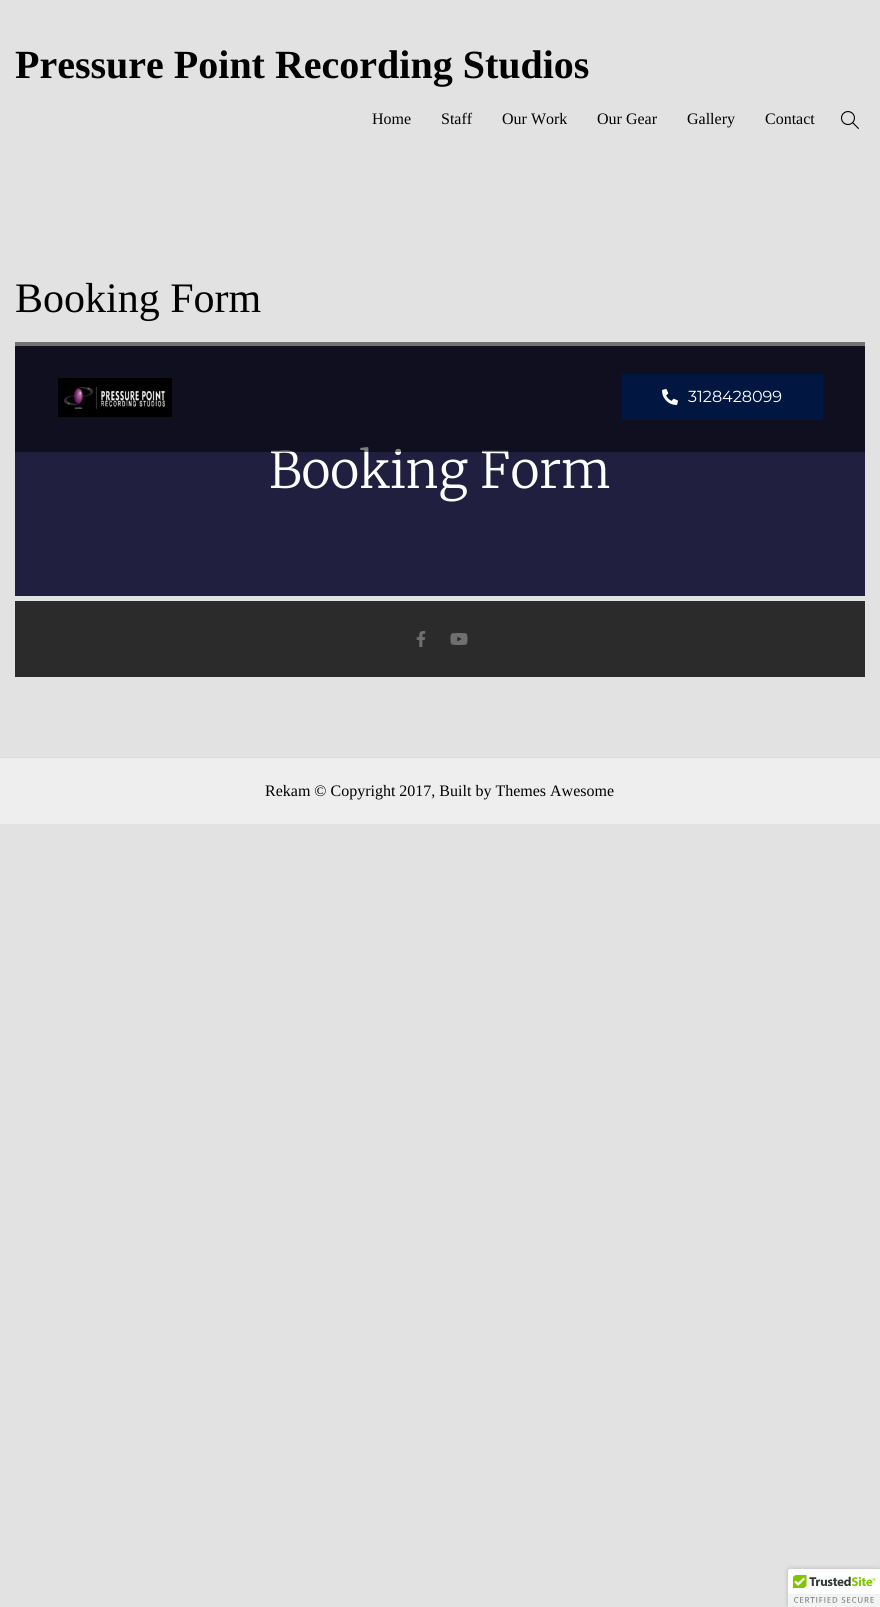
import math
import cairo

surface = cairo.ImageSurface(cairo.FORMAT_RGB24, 880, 1607)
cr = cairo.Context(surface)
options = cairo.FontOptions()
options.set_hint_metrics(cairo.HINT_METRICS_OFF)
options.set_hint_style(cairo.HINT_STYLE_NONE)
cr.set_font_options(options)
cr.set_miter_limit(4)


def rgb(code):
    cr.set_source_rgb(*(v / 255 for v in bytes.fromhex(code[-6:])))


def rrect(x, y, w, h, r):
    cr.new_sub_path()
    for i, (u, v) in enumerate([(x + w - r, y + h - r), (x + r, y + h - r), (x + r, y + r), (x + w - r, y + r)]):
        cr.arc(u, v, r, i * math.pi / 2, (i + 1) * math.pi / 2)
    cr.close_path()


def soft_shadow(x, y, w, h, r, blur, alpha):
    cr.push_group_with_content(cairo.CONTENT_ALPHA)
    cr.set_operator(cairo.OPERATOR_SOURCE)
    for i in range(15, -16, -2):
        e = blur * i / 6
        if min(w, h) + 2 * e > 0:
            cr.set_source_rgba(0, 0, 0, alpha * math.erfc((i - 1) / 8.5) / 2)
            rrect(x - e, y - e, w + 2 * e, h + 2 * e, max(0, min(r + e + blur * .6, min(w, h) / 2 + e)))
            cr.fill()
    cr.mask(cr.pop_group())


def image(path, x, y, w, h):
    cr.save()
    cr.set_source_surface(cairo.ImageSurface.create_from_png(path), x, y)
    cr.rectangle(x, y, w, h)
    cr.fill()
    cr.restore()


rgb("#e2e2e2")
cr.paint()
image("img/1.png", 840, 111, 19, 18)
rgb("#211f40")
cr.rectangle(15, 346, 850, 250)
cr.fill()
rgb("#2b2b2b")
cr.rectangle(15, 601, 850, 76)
cr.fill()
image("img/4.png", 416, 631, 10, 16)
image("img/5.png", 450, 633, 18, 12)
rgb("#eeeeee")
cr.rectangle(0, 758, 880, 66)
cr.fill()
rgb("#dddddd")
cr.rectangle(0, 757, 880, 1)
cr.fill()
rgb("#000000")
soft_shadow(788, 1569, 92, 38, 2, 2.5, 0.2)
rgb("#ffffff")
cr.new_path()
cr.move_to(790, 1569)
cr.line_to(880, 1569)
cr.line_to(880, 1607)
cr.line_to(788, 1607)
cr.line_to(788, 1571)
cr.curve_to(788, 1570, 789, 1569, 790, 1569)
cr.close_path()
cr.fill()
image("img/6.png", 788, 1569, 92, 38)
cr.select_font_face("Liberation Serif", cairo.FONT_SLANT_NORMAL, cairo.FONT_WEIGHT_BOLD)
cr.set_font_size(40)
rgb("#000000")
cr.move_to(15, 78)
cr.show_text("Pressure Point Recording Studios")
cr.select_font_face("Liberation Serif")
cr.set_font_size(16)
for x, y, s in [
    (372, 124, "Home"),
    (441, 124, "Staff"),
    (502, 124, "Our Work"),
    (597, 124, "Our Gear"),
    (687, 124, "Gallery"),
    (765, 124, "Contact"),
]:
    cr.move_to(x, y)
    cr.show_text(s)
cr.set_font_size(42)
cr.move_to(15, 312)
cr.show_text("Booking Form")
cr.select_font_face("Merriweather Light")
cr.set_font_size(50)
rgb("#ffffff")
cr.move_to(269, 488)
cr.show_text("Booking Form")
cr.set_source_rgba(0, 0, 0, 0.5)
cr.rectangle(15, 342, 850, 110)
cr.fill()
rgb("#011640")
cr.rectangle(622, 374, 201, 46)
cr.fill()
cr.select_font_face("Montserrat")
cr.set_font_size(16)
rgb("#ffffff")
cr.move_to(688, 402)
cr.show_text("3128428099")
image("img/3.png", 662, 389, 16, 16)
image("img/2.png", 58, 378, 114, 39)
cr.select_font_face("Liberation Serif")
rgb("#000000")
cr.move_to(265, 796)
cr.show_text("Rekam © Copyright 2017, Built by Themes Awesome")
surface.write_to_png("page.png")
